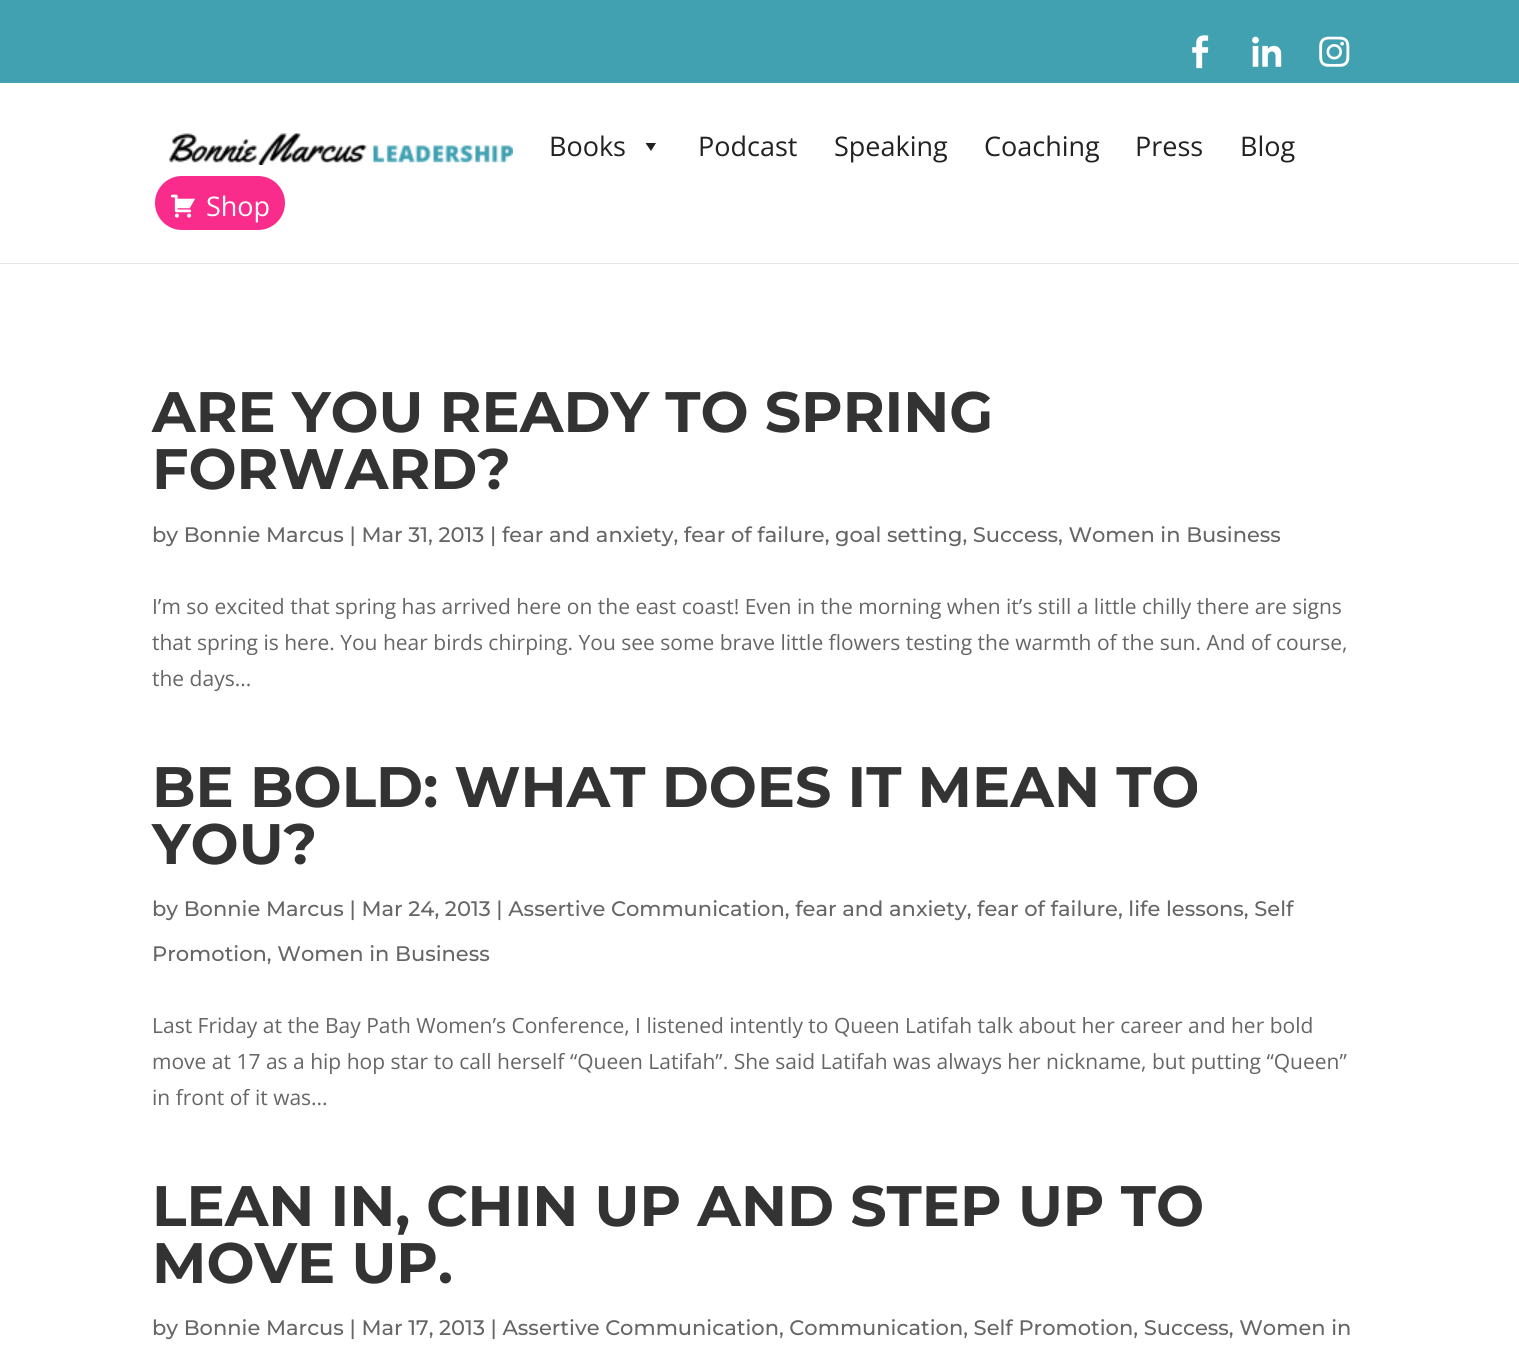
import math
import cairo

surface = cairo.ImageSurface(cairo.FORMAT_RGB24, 1519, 1367)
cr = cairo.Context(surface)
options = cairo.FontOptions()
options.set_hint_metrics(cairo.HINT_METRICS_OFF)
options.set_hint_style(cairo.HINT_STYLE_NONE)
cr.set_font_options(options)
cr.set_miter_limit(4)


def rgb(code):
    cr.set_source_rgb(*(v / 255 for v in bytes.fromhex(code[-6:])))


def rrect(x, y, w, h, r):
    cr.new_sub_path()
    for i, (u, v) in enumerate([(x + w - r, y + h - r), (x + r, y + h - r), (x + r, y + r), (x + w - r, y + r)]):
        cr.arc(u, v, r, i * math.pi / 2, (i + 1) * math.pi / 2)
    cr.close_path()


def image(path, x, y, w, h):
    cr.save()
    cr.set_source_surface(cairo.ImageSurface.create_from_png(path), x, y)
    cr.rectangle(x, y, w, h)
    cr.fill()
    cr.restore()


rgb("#ffffff")
cr.paint()
rgb("#42a1b0")
cr.rectangle(0, 0, 1519, 83)
cr.fill()
image("img/1.png", 1192, 35, 17, 34)
image("img/2.png", 1252, 36, 30, 31)
image("img/3.png", 1319, 36, 31, 31)
rgb("#e6e6e6")
cr.new_path()
cr.move_to(0, 262)
cr.line_to(0, 264)
cr.line_to(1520, 264)
cr.line_to(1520, 84)
cr.line_to(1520, 262)
cr.close_path()
cr.fill()
rgb("#ffffff")
cr.rectangle(0, 262, 1519, 1)
cr.fill()
image("img/4.png", 169, 133, 344, 32)
rgb("#222222")
cr.new_path()
cr.move_to(656, 143)
cr.line_to(651, 151)
cr.line_to(645.5, 143)
cr.close_path()
cr.fill()
rgb("#f92c8b")
rrect(153.5, 174.5, 133, 57, 28.5)
cr.fill_preserve()
rgb("#ffffff")
cr.set_line_width(3)
cr.stroke()
image("img/5.png", 170, 194, 25, 24)
cr.select_font_face("Open Sans")
cr.set_font_size(27)
rgb("#222222")
for x, y, s in [
    (549, 156, "Books"),
    (698, 156, "Podcast"),
    (834, 156, "Speaking"),
    (984, 156, "Coaching"),
    (1135, 156, "Press"),
    (1240, 156, "Blog"),
]:
    cr.move_to(x, y)
    cr.show_text(s)
rgb("#ffffff")
cr.move_to(206, 216)
cr.show_text("Shop")
cr.select_font_face("Montserrat", cairo.FONT_SLANT_NORMAL, cairo.FONT_WEIGHT_BOLD)
cr.set_font_size(57)
rgb("#333333")
cr.move_to(152, 432)
cr.show_text("ARE YOU READY TO SPRING")
cr.move_to(152, 489)
cr.show_text("FORWARD?")
cr.select_font_face("Montserrat Medium")
cr.set_font_size(21)
rgb("#666666")
cr.move_to(152, 542)
cr.show_text("by Bonnie Marcus | Mar 31, 2013 | fear and anxiety, fear of failure, goal setting, Success, Women in Business")
cr.select_font_face("Open Sans")
for x, y, s in [
    (152, 614, "I’m so excited that spring has arrived here on the east coast! Even in the morning when it’s still a little chilly there are signs"),
    (152, 650, "that spring is here. You hear birds chirping. You see some brave little flowers testing the warmth of the sun. And of course,"),
    (152, 686, "the days..."),
]:
    cr.move_to(x, y)
    cr.show_text(s)
cr.select_font_face("Montserrat", cairo.FONT_SLANT_NORMAL, cairo.FONT_WEIGHT_BOLD)
cr.set_font_size(57)
rgb("#333333")
cr.move_to(152, 807)
cr.show_text("BE BOLD: WHAT DOES IT MEAN TO")
cr.move_to(152, 864)
cr.show_text("YOU?")
cr.select_font_face("Montserrat Medium")
cr.set_font_size(21)
rgb("#666666")
cr.move_to(152, 916)
cr.show_text("by Bonnie Marcus | Mar 24, 2013 | Assertive Communication, fear and anxiety, fear of failure, life lessons, Self")
cr.move_to(152, 961)
cr.show_text("Promotion, Women in Business")
cr.select_font_face("Open Sans")
for x, y, s in [
    (152, 1033, "Last Friday at the Bay Path Women’s Conference, I listened intently to Queen Latifah talk about her career and her bold"),
    (152, 1069, "move at 17 as a hip hop star to call herself “Queen Latifah”. She said Latifah was always her nickname, but putting “Queen”"),
    (152, 1105, "in front of it was..."),
]:
    cr.move_to(x, y)
    cr.show_text(s)
cr.select_font_face("Montserrat", cairo.FONT_SLANT_NORMAL, cairo.FONT_WEIGHT_BOLD)
cr.set_font_size(57)
rgb("#333333")
cr.move_to(152, 1226)
cr.show_text("LEAN IN, CHIN UP AND STEP UP TO")
cr.move_to(152, 1283)
cr.show_text("MOVE UP.")
cr.select_font_face("Montserrat Medium")
cr.set_font_size(21)
rgb("#666666")
cr.move_to(152, 1335)
cr.show_text("by Bonnie Marcus | Mar 17, 2013 | Assertive Communication, Communication, Self Promotion, Success, Women in")
surface.write_to_png("page.png")
